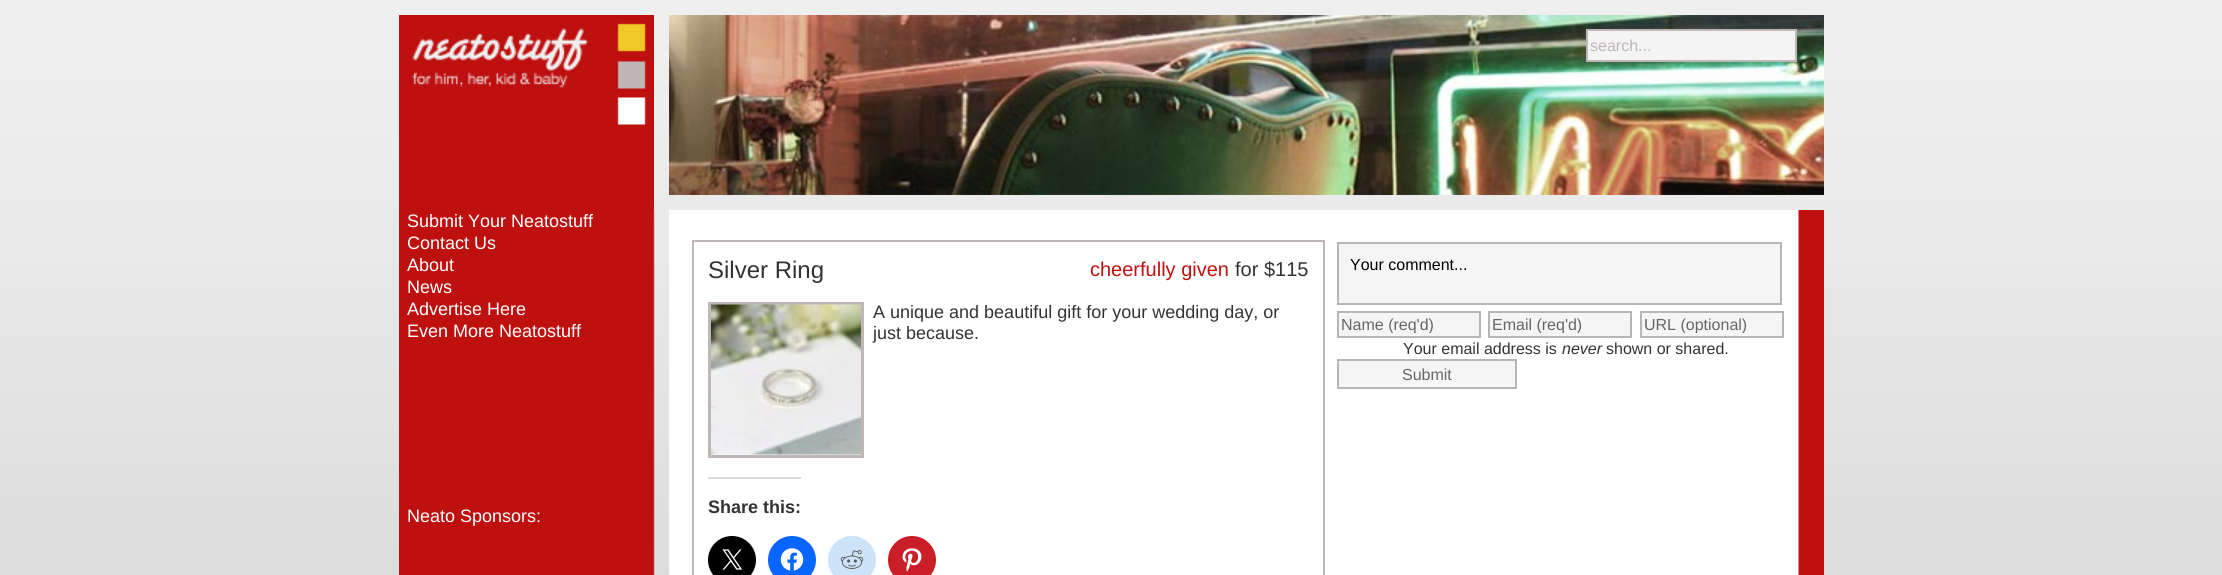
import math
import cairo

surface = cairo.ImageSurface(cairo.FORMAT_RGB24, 2222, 575)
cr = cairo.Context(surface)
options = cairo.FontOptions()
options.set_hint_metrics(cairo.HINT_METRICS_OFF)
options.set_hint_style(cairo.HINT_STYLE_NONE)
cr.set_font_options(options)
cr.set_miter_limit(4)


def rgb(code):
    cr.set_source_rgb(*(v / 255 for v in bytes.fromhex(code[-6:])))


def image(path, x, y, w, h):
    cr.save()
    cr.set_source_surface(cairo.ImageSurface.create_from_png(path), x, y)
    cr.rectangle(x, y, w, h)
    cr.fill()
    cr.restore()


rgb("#ffffff")
cr.paint()
image("img/1.png", 0, 0, 2222, 575)
image("img/2.png", 399, 15, 255, 195)
image("img/3.png", 669, 15, 1155, 180)
rgb("#f4f4f4")
cr.rectangle(1587, 30, 209, 31)
cr.fill_preserve()
rgb("#bfb7b5")
cr.stroke()
image("img/4.png", 399, 210, 1425, 365)
cr.rectangle(693, 241, 631, 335)
cr.stroke()
cr.rectangle(709.5, 303.5, 153, 153)
cr.set_line_width(3)
cr.stroke()
image("img/5.png", 711, 304, 150, 151)
rgb("#dcdcde")
cr.rectangle(708, 477, 93, 2)
cr.fill()
rgb("#000000")
cr.arc(732, 560, 24, 0, 2 * math.pi)
cr.fill()
image("img/6.png", 722, 549, 21, 21)
rgb("#0866ff")
cr.arc(792, 560, 24, 0, 2 * math.pi)
cr.fill()
image("img/7.png", 780, 548, 24, 23)
rgb("#cee3f8")
cr.arc(852, 560, 24, 0, 2 * math.pi)
cr.fill()
image("img/8.png", 840, 550, 24, 19)
rgb("#ca1f27")
cr.arc(912, 560, 24, 0, 2 * math.pi)
cr.fill()
image("img/9.png", 902, 548, 20, 24)
rgb("#f5f5f5")
cr.rectangle(1338, 243, 443, 61)
cr.fill_preserve()
rgb("#b5b7b5")
cr.set_line_width(2)
cr.stroke()
rgb("#f5f5f5")
cr.rectangle(1338, 312, 142, 25)
cr.fill_preserve()
rgb("#b5b7b5")
cr.stroke()
rgb("#f5f5f5")
cr.rectangle(1489, 312, 142, 25)
cr.fill_preserve()
rgb("#b5b7b5")
cr.stroke()
rgb("#f5f5f5")
cr.rectangle(1641, 312, 142, 25)
cr.fill_preserve()
rgb("#b5b7b5")
cr.stroke()
rgb("#f5f5f5")
cr.rectangle(1338, 360, 178, 28)
cr.fill_preserve()
rgb("#b5b7b5")
cr.stroke()
cr.select_font_face("Liberation Sans")
cr.set_font_size(16)
rgb("#bfb7b5")
cr.move_to(1590, 51)
cr.show_text("search...")
cr.set_font_size(18)
rgb("#ffffff")
for x, y, s in [
    (407, 227, "Submit Your Neatostuff"),
    (407, 249, "Contact Us"),
    (407, 271, "About"),
    (407, 293, "News"),
    (407, 315, "Advertise Here"),
    (407, 337, "Even More Neatostuff"),
    (407, 522, "Neato Sponsors:"),
]:
    cr.move_to(x, y)
    cr.show_text(s)
cr.set_font_size(24)
rgb("#333333")
cr.move_to(708, 278)
cr.show_text("Silver Ring")
cr.set_font_size(20)
rgb("#be100f")
cr.move_to(1090, 276)
cr.show_text("cheerfully given")
rgb("#333333")
cr.move_to(1235, 276)
cr.show_text("for $115")
cr.set_font_size(18)
cr.move_to(873, 318)
cr.show_text("A unique and beautiful gift for your wedding day, or")
cr.move_to(873, 339)
cr.show_text("just because.")
cr.select_font_face("Liberation Sans", cairo.FONT_SLANT_NORMAL, cairo.FONT_WEIGHT_BOLD)
cr.move_to(708, 513)
cr.show_text("Share this:")
cr.select_font_face("Liberation Sans")
cr.set_font_size(16)
rgb("#000000")
cr.move_to(1350, 270)
cr.show_text("Your comment...")
cr.save()
cr.rectangle(1341, 315, 135, 18)
cr.clip()
rgb("#666666")
cr.move_to(1341, 330)
cr.show_text("Name (req'd)")
cr.restore()
cr.save()
cr.rectangle(1493, 315, 135, 18)
cr.clip()
rgb("#666666")
cr.move_to(1492, 330)
cr.show_text("Email (req'd)")
cr.restore()
cr.save()
cr.rectangle(1644, 315, 135, 18)
cr.clip()
rgb("#666666")
cr.move_to(1644, 330)
cr.show_text("URL (optional)")
cr.restore()
rgb("#333333")
cr.move_to(1403, 354)
cr.show_text("Your email address is")
cr.select_font_face("Liberation Sans", cairo.FONT_SLANT_ITALIC)
cr.move_to(1562, 354)
cr.show_text("never")
cr.select_font_face("Liberation Sans")
cr.move_to(1606, 354)
cr.show_text("shown or shared.")
rgb("#666666")
cr.move_to(1402, 380)
cr.show_text("Submit")
surface.write_to_png("page.png")
